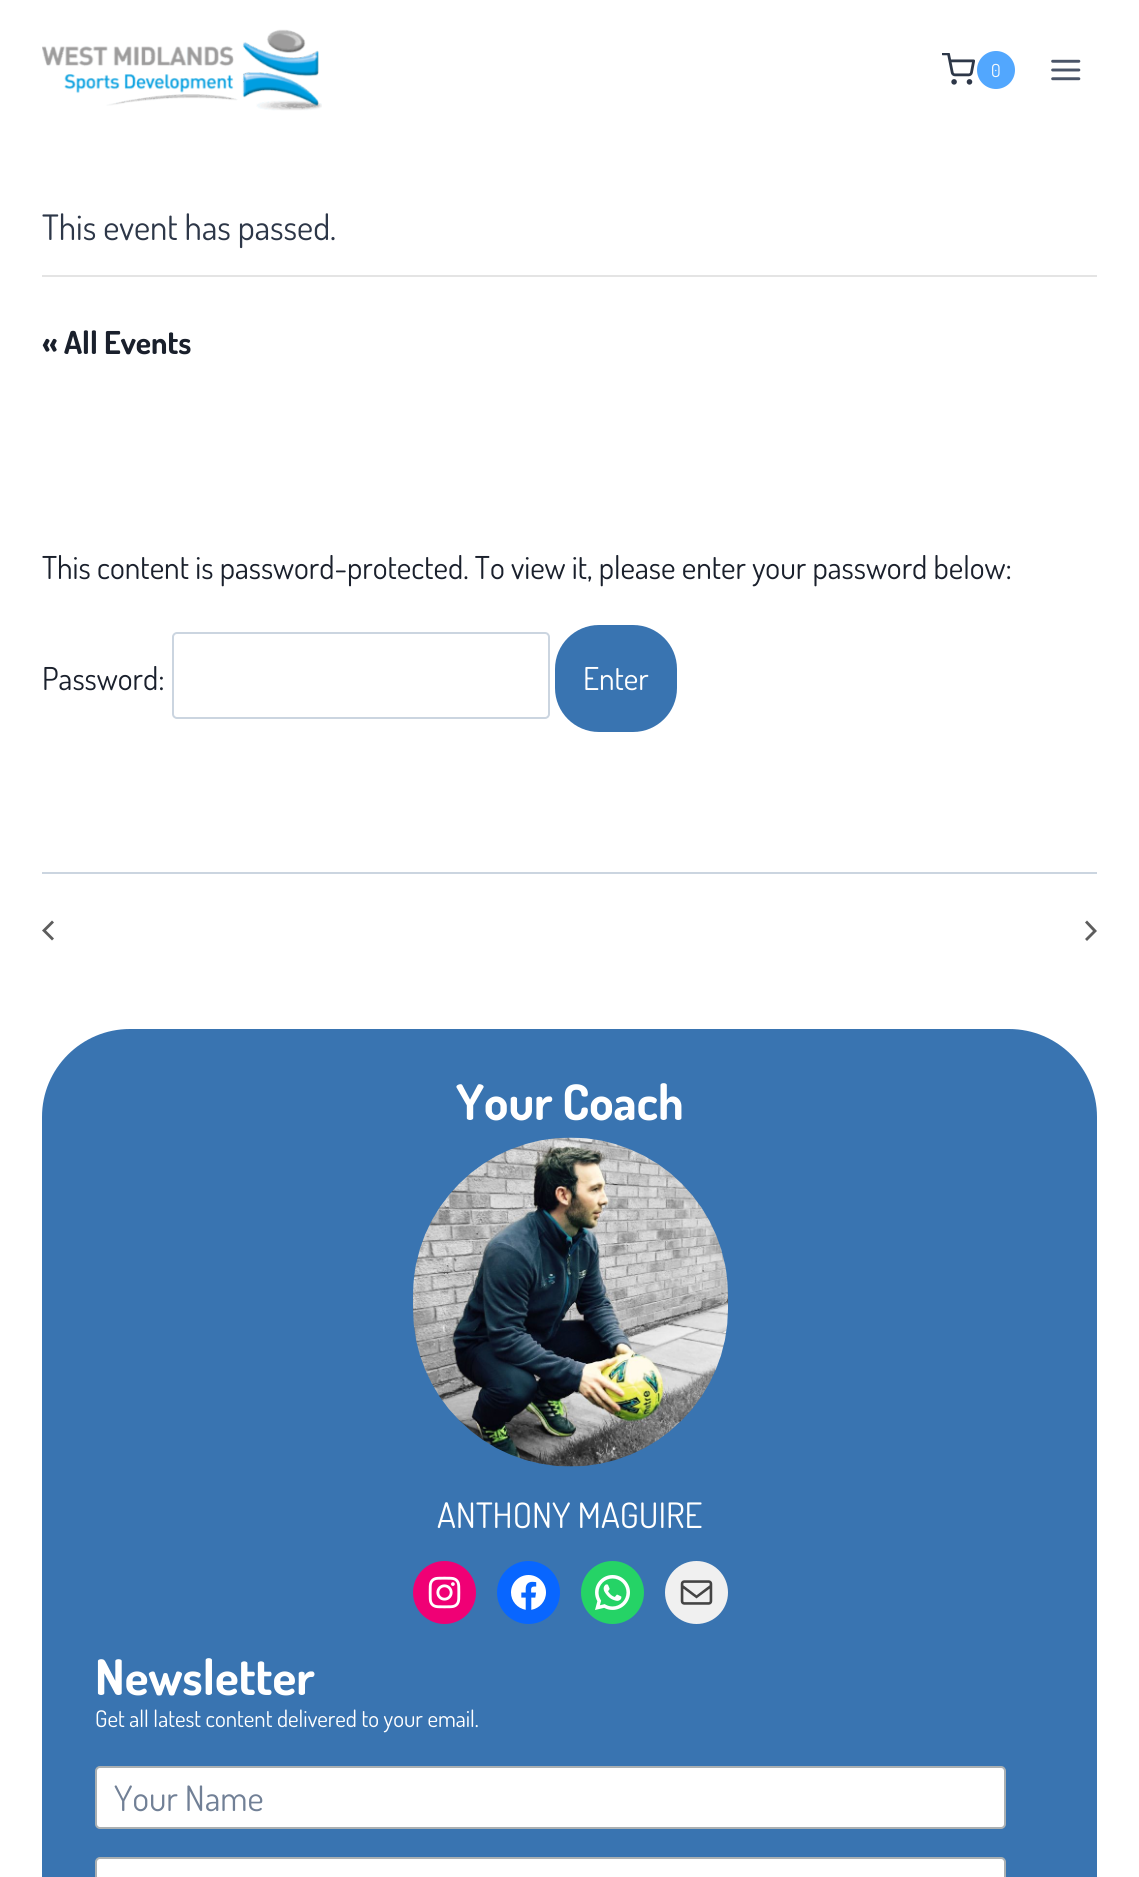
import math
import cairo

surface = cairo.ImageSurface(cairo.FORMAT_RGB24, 1139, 1877)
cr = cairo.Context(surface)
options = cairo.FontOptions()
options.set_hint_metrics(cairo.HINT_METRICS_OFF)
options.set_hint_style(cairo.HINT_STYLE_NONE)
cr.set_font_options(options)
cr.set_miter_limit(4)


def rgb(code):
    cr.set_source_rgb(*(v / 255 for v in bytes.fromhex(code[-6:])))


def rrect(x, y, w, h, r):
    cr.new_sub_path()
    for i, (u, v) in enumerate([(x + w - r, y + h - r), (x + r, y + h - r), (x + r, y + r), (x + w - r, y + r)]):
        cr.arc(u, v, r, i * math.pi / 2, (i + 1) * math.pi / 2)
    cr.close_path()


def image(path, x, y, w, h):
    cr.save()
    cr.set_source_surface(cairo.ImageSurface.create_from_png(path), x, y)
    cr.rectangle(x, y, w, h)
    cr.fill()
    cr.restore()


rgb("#ffffff")
cr.paint()
image("img/1.png", 42, 29, 280, 82)
image("img/2.png", 942, 53, 33, 32)
rgb("#52a7fe")
cr.arc(996, 70, 19, 0, 2 * math.pi)
cr.fill()
image("img/3.png", 1051, 59, 30, 22)
rgb("#e4e4e4")
cr.rectangle(42, 275, 1055, 2)
cr.fill()
rrect(173, 633, 376, 85, 4)
rgb("#cbd5e0")
cr.stroke()
rgb("#3974b1")
rrect(555, 625, 122, 107, 44)
cr.fill()
rgb("#cbd5e0")
cr.rectangle(42, 872, 1055, 2)
cr.fill()
rgb("#5d5d5d")
cr.new_path()
cr.move_to(54, 938.5)
cr.line_to(52, 940.5)
cr.line_to(42, 930.5)
cr.line_to(52, 920.5)
cr.line_to(54, 922.5)
cr.line_to(46, 930.5)
cr.close_path()
cr.fill()
cr.new_path()
cr.move_to(1085, 922.5)
cr.line_to(1087, 920.5)
cr.line_to(1097, 931)
cr.line_to(1087, 941)
cr.line_to(1085, 939)
cr.line_to(1093, 931)
cr.close_path()
cr.fill()
rgb("#3974b1")
rrect(42, 1029, 1055, 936, 88)
cr.fill()
image("img/4.png", 413, 1137, 315, 330)
rgb("#f00075")
cr.arc(444.5, 1592.5, 31.5, 0, 2 * math.pi)
cr.fill()
image("img/5.png", 428, 1576, 33, 33)
rgb("#0866ff")
cr.arc(528.5, 1592.5, 31.5, 0, 2 * math.pi)
cr.fill()
image("img/6.png", 511, 1575, 35, 35)
rgb("#25d366")
cr.arc(612.5, 1592.5, 31.5, 0, 2 * math.pi)
cr.fill()
image("img/7.png", 595, 1575, 35, 35)
rgb("#f0f0f0")
cr.arc(696.5, 1592.5, 31.5, 0, 2 * math.pi)
cr.fill()
image("img/8.png", 680, 1580, 33, 25)
rgb("#ffffff")
rrect(96, 1767, 909, 61, 4)
cr.fill_preserve()
rgb("#abb0b2")
cr.stroke()
rgb("#ffffff")
rrect(96, 1858, 909, 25, 4)
cr.fill_preserve()
rgb("#abb0b2")
cr.stroke()
cr.select_font_face("Dosis")
cr.set_font_size(18)
rgb("#f7fafc")
cr.move_to(991, 77)
cr.show_text("0")
cr.set_font_size(35)
rgb("#2d3748")
cr.move_to(42, 240)
cr.show_text("This event has passed.")
cr.select_font_face("Dosis", cairo.FONT_SLANT_NORMAL, cairo.FONT_WEIGHT_BOLD)
cr.set_font_size(31.5)
rgb("#1a202c")
cr.move_to(42, 354)
cr.show_text("« All Events")
cr.select_font_face("Dosis")
cr.move_to(42, 579)
cr.show_text("This content is password-protected. To view it, please enter your password below:")
cr.move_to(42, 690)
cr.show_text("Password:")
rgb("#ffffff")
cr.move_to(583, 690)
cr.show_text("Enter")
cr.select_font_face("Dosis", cairo.FONT_SLANT_NORMAL, cairo.FONT_WEIGHT_BOLD)
cr.set_font_size(49)
cr.move_to(456, 1120)
cr.show_text("Your Coach")
cr.select_font_face("Dosis")
cr.set_font_size(35)
cr.move_to(437, 1528)
cr.show_text("ANTHONY MAGUIRE")
cr.select_font_face("Dosis", cairo.FONT_SLANT_NORMAL, cairo.FONT_WEIGHT_BOLD)
cr.set_font_size(49)
cr.move_to(95, 1695)
cr.show_text("Newsletter")
cr.select_font_face("Dosis")
cr.set_font_size(22.9)
cr.move_to(95, 1727)
cr.show_text("Get all latest content delivered to your email.")
cr.set_font_size(35)
rgb("#718096")
cr.move_to(114, 1811)
cr.show_text("Your Name")
surface.write_to_png("page.png")
